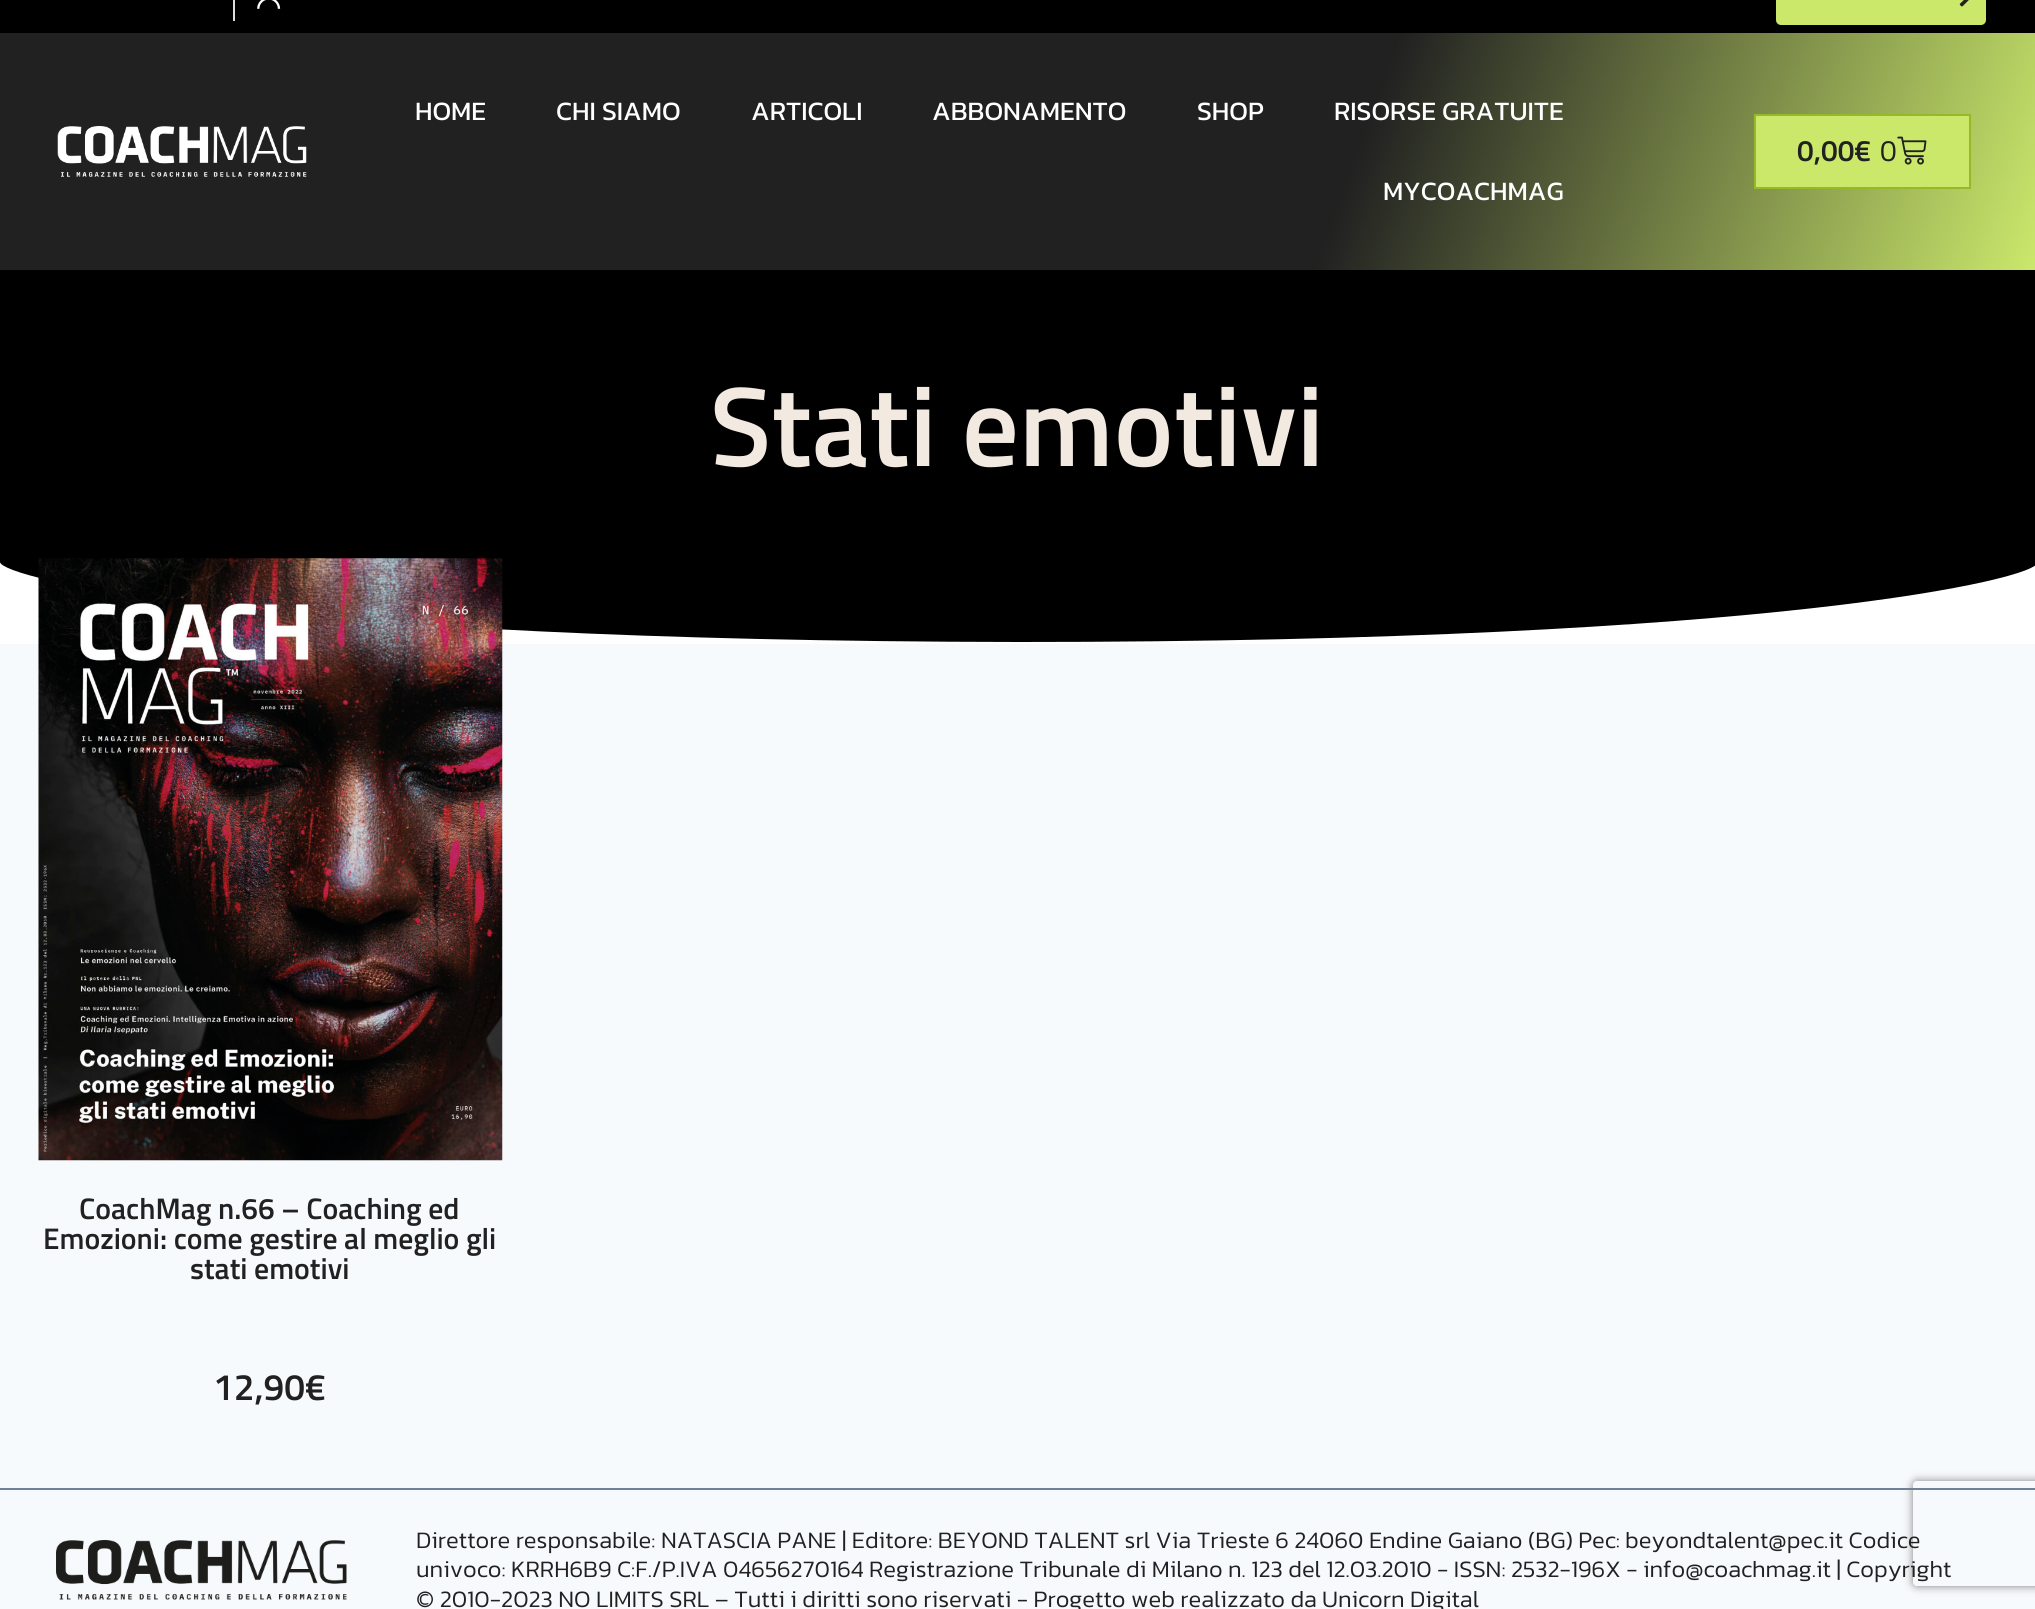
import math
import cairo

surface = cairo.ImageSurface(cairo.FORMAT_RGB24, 2035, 1609)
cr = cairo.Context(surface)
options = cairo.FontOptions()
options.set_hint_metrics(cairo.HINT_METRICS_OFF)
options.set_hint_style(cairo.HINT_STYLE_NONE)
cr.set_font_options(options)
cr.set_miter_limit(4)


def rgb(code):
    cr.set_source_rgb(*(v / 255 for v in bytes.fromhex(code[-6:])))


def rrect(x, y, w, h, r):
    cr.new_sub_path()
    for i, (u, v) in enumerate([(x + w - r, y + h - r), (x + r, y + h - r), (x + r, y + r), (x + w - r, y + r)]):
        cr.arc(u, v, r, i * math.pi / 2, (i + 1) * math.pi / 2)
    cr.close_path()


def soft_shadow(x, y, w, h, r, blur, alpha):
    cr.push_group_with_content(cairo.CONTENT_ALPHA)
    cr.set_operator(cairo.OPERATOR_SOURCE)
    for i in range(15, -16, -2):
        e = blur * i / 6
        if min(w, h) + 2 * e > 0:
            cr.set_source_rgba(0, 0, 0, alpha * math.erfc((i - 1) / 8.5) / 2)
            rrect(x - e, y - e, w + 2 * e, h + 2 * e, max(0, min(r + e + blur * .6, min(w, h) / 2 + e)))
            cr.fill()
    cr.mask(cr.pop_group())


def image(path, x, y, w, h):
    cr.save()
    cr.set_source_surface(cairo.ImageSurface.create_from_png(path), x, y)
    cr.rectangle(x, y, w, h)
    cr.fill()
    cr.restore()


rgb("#f7fafc")
cr.paint()
rgb("#000000")
cr.rectangle(0, 0, 2035, 33)
cr.fill()
rgb("#dddddd")
cr.rectangle(233, 0, 2, 21)
cr.fill()
image("img/1.png", 257, 0, 24, 9)
rgb("#cbe86b")
rrect(1776, -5, 210, 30, 5)
cr.fill()
image("img/2.png", 1959, 0, 10, 7)
gradient = cairo.LinearGradient(81, -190, 1954, 492)
gradient.add_color_stop_rgba(0.66, 0.129, 0.129, 0.129, 1)
gradient.add_color_stop_rgba(1, 0.796, 0.91, 0.42, 1)
cr.set_source(gradient)
cr.rectangle(0, 33, 2035, 237)
cr.fill()
image("img/3.png", 57, 126, 250, 51)
rgb("#cbe86b")
cr.rectangle(1755, 115, 215, 73)
cr.fill_preserve()
rgb("#98b82b")
cr.stroke()
image("img/4.png", 1897, 136, 30, 29)
rgb("#000000")
cr.rectangle(0, 270, 2035, 372)
cr.fill()
rgb("#ffffff")
cr.new_path()
cr.move_to(1019, 642)
cr.curve_to(258, 641, 1, 578, 0, 562)
cr.line_to(0, 644)
cr.line_to(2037, 644)
cr.line_to(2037, 563)
cr.curve_to(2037, 578, 1779, 642, 1019, 642)
cr.close_path()
cr.fill()
image("img/5.png", 38, 558, 465, 603)
rgb("#718096")
cr.rectangle(0, 1488, 2035, 2)
cr.fill()
image("img/6.png", 56, 1540, 291, 60)
cr.save()
cr.set_fill_rule(cairo.FILL_RULE_EVEN_ODD)
cr.new_path()
cr.move_to(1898, 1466)
cr.line_to(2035, 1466)
cr.line_to(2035, 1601)
cr.line_to(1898, 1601)
cr.close_path()
cr.move_to(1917, 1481)
cr.line_to(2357, 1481)
cr.curve_to(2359, 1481, 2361, 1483, 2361, 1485)
cr.line_to(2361, 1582)
cr.curve_to(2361, 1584, 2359, 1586, 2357, 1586)
cr.line_to(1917, 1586)
cr.curve_to(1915, 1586, 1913, 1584, 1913, 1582)
cr.line_to(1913, 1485)
cr.curve_to(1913, 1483, 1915, 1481, 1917, 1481)
cr.close_path()
cr.clip()
rgb("#808080")
soft_shadow(1913, 1481, 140, 105, 4, 4.5, 1)
cr.restore()
cr.select_font_face("Kanit")
cr.set_font_size(26.75)
rgb("#ffffff")
for x, y, s in [
    (415, 120, "HOME"),
    (556, 120, "CHI SIAMO"),
    (751, 120, "ARTICOLI"),
    (932, 120, "ABBONAMENTO"),
    (1197, 120, "SHOP"),
    (1334, 120, "RISORSE GRATUITE"),
    (1383, 200, "MYCOACHMAG"),
]:
    cr.move_to(x, y)
    cr.show_text(s)
cr.select_font_face("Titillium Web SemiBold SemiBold")
cr.set_font_size(29.75)
rgb("#212121")
cr.move_to(1797, 161)
cr.show_text("0,00€")
cr.select_font_face("Titillium Web")
cr.move_to(1880, 161)
cr.show_text("0")
cr.select_font_face("Titillium Web SemiBold SemiBold")
cr.set_font_size(113)
rgb("#f2e9e1")
cr.move_to(710, 466)
cr.show_text("Stati emotivi")
cr.set_font_size(29.75)
rgb("#212121")
for x, y, s in [
    (79, 1219, "CoachMag n.66 – Coaching ed"),
    (43, 1249, "Emozioni: come gestire al meglio gli"),
    (190, 1279, "stati emotivi"),
]:
    cr.move_to(x, y)
    cr.show_text(s)
cr.set_font_size(37)
cr.move_to(213, 1400)
cr.show_text("12,90€")
cr.select_font_face("Kanit Light")
cr.set_font_size(23.8)
for x, y, s in [
    (416, 1548, "Direttore responsabile: NATASCIA PANE | Editore: BEYOND TALENT srl Via Trieste 6 24060 Endine Gaiano (BG) Pec:"),
    (1625, 1548, "beyondtalent@pec.it Codice"),
    (416, 1577, "univoco: KRRH6B9 C:F./P.IVA 04656270164 Registrazione Tribunale di Milano n. 123 del 12.03.2010 - ISSN: 2532-196X - info@coachmag.it | Copyright"),
    (416, 1607, "© 2010-2023 NO LIMITS SRL – Tutti i diritti sono riservati - Progetto web realizzato da"),
    (1322, 1607, "Unicorn Digital"),
]:
    cr.move_to(x, y)
    cr.show_text(s)
surface.write_to_png("page.png")
